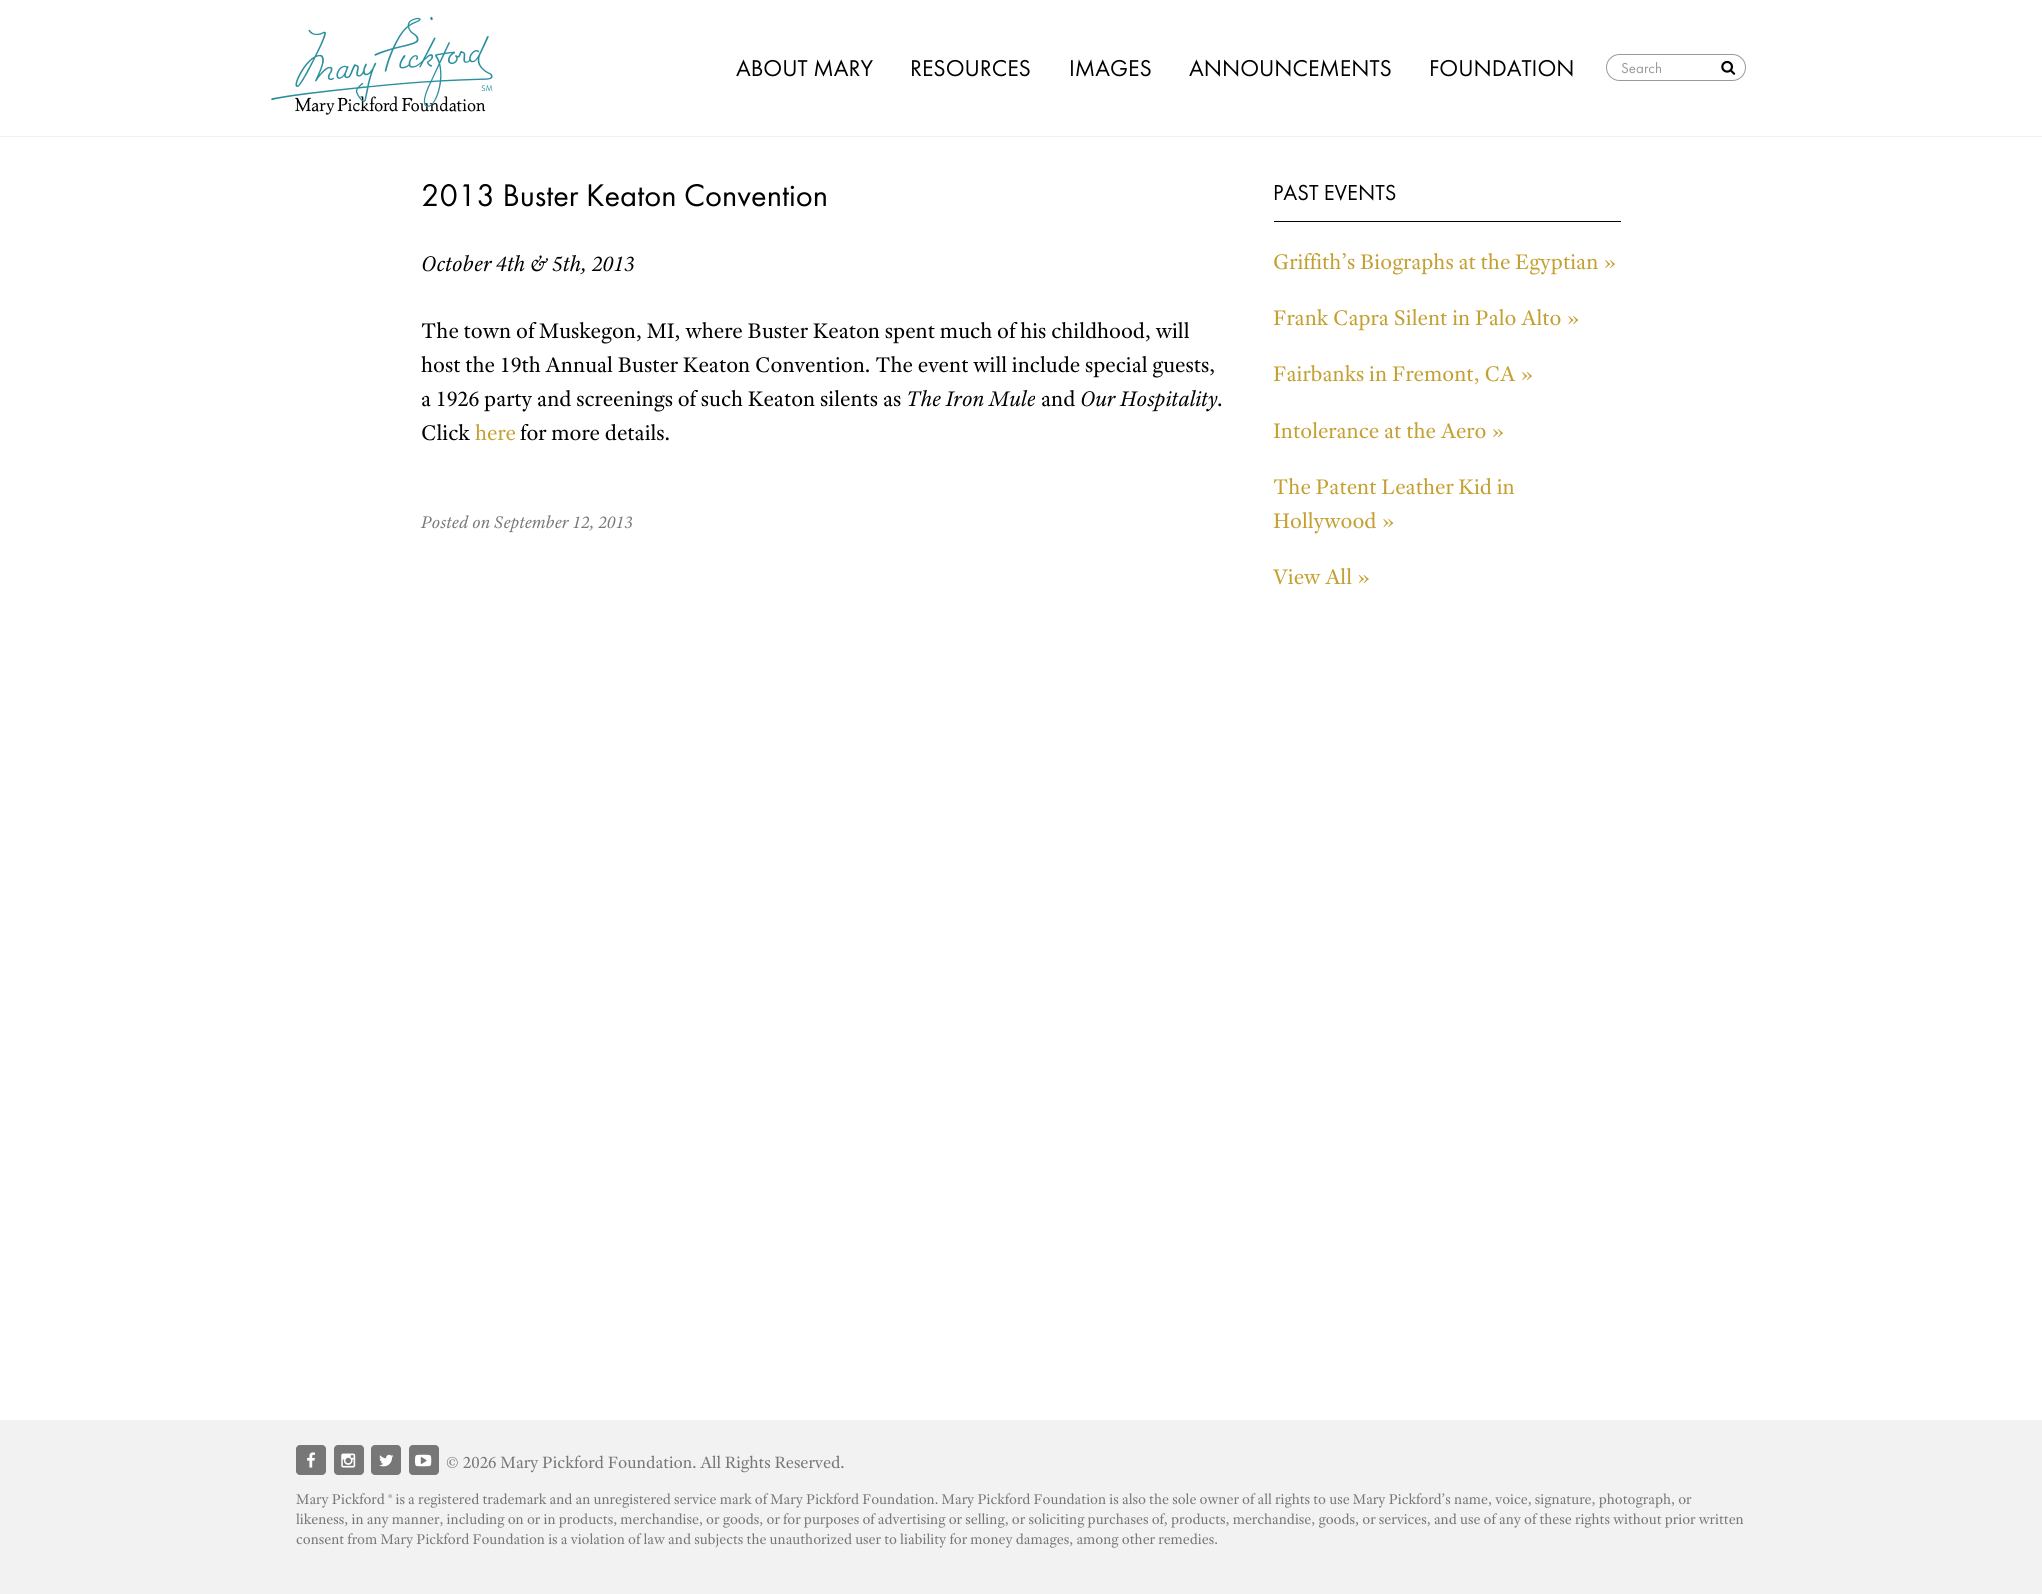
import math
import cairo

surface = cairo.ImageSurface(cairo.FORMAT_RGB24, 2042, 1594)
cr = cairo.Context(surface)
options = cairo.FontOptions()
options.set_hint_metrics(cairo.HINT_METRICS_OFF)
options.set_hint_style(cairo.HINT_STYLE_NONE)
cr.set_font_options(options)
cr.set_miter_limit(4)


def rgb(code):
    cr.set_source_rgb(*(v / 255 for v in bytes.fromhex(code[-6:])))


def rrect(x, y, w, h, r):
    cr.new_sub_path()
    for i, (u, v) in enumerate([(x + w - r, y + h - r), (x + r, y + h - r), (x + r, y + r), (x + w - r, y + r)]):
        cr.arc(u, v, r, i * math.pi / 2, (i + 1) * math.pi / 2)
    cr.close_path()


def image(path, x, y, w, h):
    cr.save()
    cr.set_source_surface(cairo.ImageSurface.create_from_png(path), x, y)
    cr.rectangle(x, y, w, h)
    cr.fill()
    cr.restore()


rgb("#ffffff")
cr.paint()
rgb("#f0f0f0")
cr.rectangle(0, 136, 2042, 1)
cr.fill()
image("img/2.png", 295, 96, 191, 19)
image("img/1.png", 271, 16, 222, 91)
rrect(1606.5, 54.5, 139, 26, 13)
rgb("#999999")
cr.set_line_width(1)
cr.stroke()
image("img/3.png", 1721, 60, 15, 15)
rgb("#000000")
cr.rectangle(1274, 221, 347, 1)
cr.fill()
rgb("#f2f2f2")
cr.rectangle(0, 1420, 2042, 174)
cr.fill()
rgb("#777777")
rrect(296, 1445, 30, 30, 4)
cr.fill()
image("img/4.png", 307, 1452, 8, 16)
rrect(334, 1445, 30, 30, 4)
cr.fill()
image("img/5.png", 341, 1453, 15, 15)
rrect(371, 1445, 30, 30, 4)
cr.fill()
image("img/6.png", 379, 1454, 15, 13)
rrect(409, 1445, 30, 30, 4)
cr.fill()
image("img/7.png", 415, 1454, 17, 13)
cr.select_font_face("Futura PT")
cr.set_font_size(23.75)
rgb("#000000")
for x, y, s in [
    (736, 76, "ABOUT MARY"),
    (910, 76, "RESOURCES"),
    (1069, 76, "IMAGES"),
    (1189, 76, "ANNOUNCEMENTS"),
    (1429, 76, "FOUNDATION"),
]:
    cr.move_to(x, y)
    cr.show_text(s)
cr.set_font_size(15)
rgb("#999999")
cr.move_to(1621, 73)
cr.show_text("Search")
cr.set_font_size(32.5)
rgb("#000000")
cr.move_to(421, 206)
cr.show_text("2013 Buster Keaton Convention")
cr.select_font_face("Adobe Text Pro", cairo.FONT_SLANT_ITALIC)
cr.set_font_size(22.5)
cr.move_to(421, 271)
cr.show_text("October 4th & 5th, 2013")
cr.select_font_face("Adobe Text Pro")
for x, y, s in [
    (421, 338, "The town of Muskegon, MI, where Buster Keaton spent much of his childhood, will"),
    (421, 372, "host the 19th Annual Buster Keaton Convention. The event will include special guests,"),
    (421, 406, "a 1926 party and screenings of such Keaton silents as"),
]:
    cr.move_to(x, y)
    cr.show_text(s)
cr.select_font_face("Adobe Text Pro", cairo.FONT_SLANT_ITALIC)
cr.move_to(906, 406)
cr.show_text("The Iron Mule")
cr.select_font_face("Adobe Text Pro")
cr.move_to(1041, 406)
cr.show_text("and")
cr.select_font_face("Adobe Text Pro", cairo.FONT_SLANT_ITALIC)
cr.move_to(1080, 406)
cr.show_text("Our Hospitality")
cr.select_font_face("Adobe Text Pro")
cr.move_to(1217, 406)
cr.show_text(".")
cr.move_to(421, 440)
cr.show_text("Click")
rgb("#c3a031")
cr.move_to(475, 440)
cr.show_text("here")
rgb("#000000")
cr.move_to(520, 440)
cr.show_text("for more details.")
cr.select_font_face("Adobe Text Pro", cairo.FONT_SLANT_ITALIC)
cr.set_font_size(18)
rgb("#777777")
cr.move_to(421, 528)
cr.show_text("Posted on September 12, 2013")
cr.select_font_face("Futura PT")
cr.set_font_size(22.5)
rgb("#000000")
cr.move_to(1273, 200)
cr.show_text("PAST EVENTS")
cr.select_font_face("Adobe Text Pro")
rgb("#c3a031")
for x, y, s in [
    (1273, 269, "Griffith’s Biographs at the Egyptian »"),
    (1273, 325, "Frank Capra Silent in Palo Alto »"),
    (1273, 381, "Fairbanks in Fremont, CA »"),
    (1273, 438, "Intolerance at the Aero »"),
    (1273, 494, "The Patent Leather Kid in"),
    (1273, 528, "Hollywood »"),
    (1273, 584, "View All »"),
]:
    cr.move_to(x, y)
    cr.show_text(s)
cr.set_font_size(17.5)
rgb("#777777")
cr.move_to(446, 1468)
cr.show_text("© 2026 Mary Pickford Foundation. All Rights Reserved.")
cr.set_font_size(15)
for x, y, s in [
    (296, 1504, "Mary Pickford ® is a registered trademark and an unregistered service mark of Mary Pickford Foundation. Mary Pickford Foundation is also the sole owner of all rights to use Mary Pickford’s name, voice, signature, photograph, or"),
    (296, 1524, "likeness, in any manner, including on or in products, merchandise, or goods, or for purposes of advertising or selling, or soliciting purchases of, products, merchandise, goods, or services, and use of any of these rights without prior written"),
    (296, 1544, "consent from Mary Pickford Foundation is a violation of law and subjects the unauthorized user to liability for money damages, among other remedies."),
]:
    cr.move_to(x, y)
    cr.show_text(s)
surface.write_to_png("page.png")
